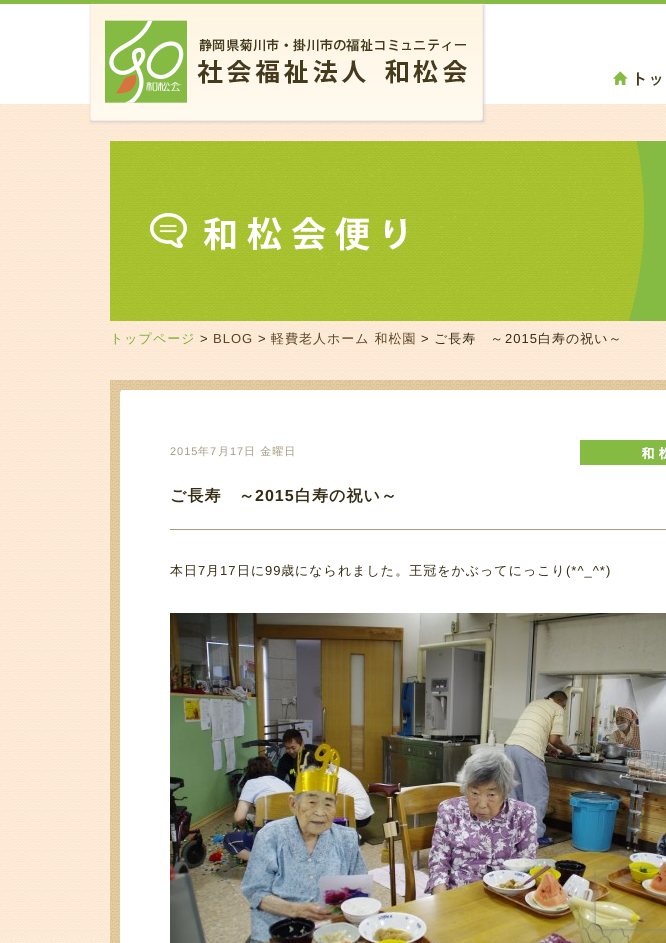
import math
import cairo

surface = cairo.ImageSurface(cairo.FORMAT_RGB24, 666, 943)
cr = cairo.Context(surface)
options = cairo.FontOptions()
options.set_hint_metrics(cairo.HINT_METRICS_OFF)
options.set_hint_style(cairo.HINT_STYLE_NONE)
cr.set_font_options(options)
cr.set_miter_limit(4)


def rgb(code):
    cr.set_source_rgb(*(v / 255 for v in bytes.fromhex(code[-6:])))


def tracked(x, y, s, letter, word):
    cr.move_to(x, y)
    for ch in s:
        cr.show_text(ch)
        cr.rel_move_to(letter + word * (ch == ' '), 0)


def rrect(x, y, w, h, r):
    cr.new_sub_path()
    for i, (u, v) in enumerate([(x + w - r, y + h - r), (x + r, y + h - r), (x + r, y + r), (x + w - r, y + r)]):
        cr.arc(u, v, r, i * math.pi / 2, (i + 1) * math.pi / 2)
    cr.close_path()


def soft_shadow(x, y, w, h, r, blur, alpha):
    cr.push_group_with_content(cairo.CONTENT_ALPHA)
    cr.set_operator(cairo.OPERATOR_SOURCE)
    for i in range(15, -16, -2):
        e = blur * i / 6
        if min(w, h) + 2 * e > 0:
            cr.set_source_rgba(0, 0, 0, alpha * math.erfc((i - 1) / 8.5) / 2)
            rrect(x - e, y - e, w + 2 * e, h + 2 * e, max(0, min(r + e + blur * .6, min(w, h) / 2 + e)))
            cr.fill()
    cr.mask(cr.pop_group())


def image(path, x, y, w, h):
    cr.save()
    cr.set_source_surface(cairo.ImageSurface.create_from_png(path), x, y)
    cr.rectangle(x, y, w, h)
    cr.fill()
    cr.restore()


rgb("#ffffff")
cr.paint()
image("img/1.png", 0, 104, 666, 839)
rgb("#86bc43")
cr.rectangle(0, 0, 666, 4)
cr.fill()
rgb("#cccccc")
soft_shadow(91, 5, 393, 117, 0, 1.5, 1)
image("img/2.png", 90, 4, 393, 117)
image("img/3.png", 613, 71, 49, 15)
image("img/4.png", 110, 141, 556, 180)
image("img/5.png", 110, 380, 556, 563)
rgb("#ffffff")
rrect(120, 390, 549, 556, 3)
cr.fill()
rgb("#a49b83")
cr.rectangle(170, 529, 496, 1)
cr.fill()
image("img/6.png", 580, 440, 86, 25)
image("img/7.png", 170, 613, 496, 330)
cr.save()
cr.set_fill_rule(cairo.FILL_RULE_EVEN_ODD)
cr.new_path()
cr.move_to(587, 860)
cr.line_to(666, 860)
cr.line_to(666, 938)
cr.line_to(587, 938)
cr.close_path()
cr.move_to(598, 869)
cr.line_to(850, 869)
cr.curve_to(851, 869, 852, 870, 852, 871)
cr.line_to(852, 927)
cr.curve_to(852, 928, 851, 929, 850, 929)
cr.line_to(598, 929)
cr.curve_to(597, 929, 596, 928, 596, 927)
cr.line_to(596, 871)
cr.curve_to(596, 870, 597, 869, 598, 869)
cr.close_path()
cr.clip()
rgb("#808080")
soft_shadow(596, 869, 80, 60, 2, 2.5, 1)
cr.restore()
cr.select_font_face("WenQuanYi Zen Hei Medium")
cr.set_font_size(13)
rgb("#78b02c")
tracked(110, 343, "トップページ", 1, 0)
cr.select_font_face("Liberation Sans")
rgb("#352c14")
tracked(200, 343, ">", 1, 0)
rgb("#594626")
tracked(213, 343, "BLOG", 1, 0)
rgb("#352c14")
tracked(258, 343, ">", 1, 0)
cr.select_font_face("WenQuanYi Zen Hei Medium")
rgb("#594626")
tracked(271, 343, "軽費老人ホーム 和松園", 1, 0)
cr.select_font_face("Liberation Sans")
rgb("#352c14")
tracked(421, 343, ">", 1, 0)
cr.select_font_face("WenQuanYi Zen Hei Medium")
tracked(434, 343, "ご長寿　～", 1, 0)
cr.select_font_face("Liberation Sans")
tracked(505, 343, "2015", 1, 0)
cr.select_font_face("WenQuanYi Zen Hei Medium")
tracked(538, 343, "白寿の祝い～", 1, 0)
cr.select_font_face("Liberation Sans")
cr.set_font_size(11)
rgb("#a49b83")
tracked(170, 455, "2015", 1, 0)
cr.select_font_face("WenQuanYi Zen Hei Medium")
tracked(198, 455, "年", 1, 0)
cr.select_font_face("Liberation Sans")
tracked(210, 455, "7", 1, 0)
cr.select_font_face("WenQuanYi Zen Hei Medium")
tracked(218, 455, "月", 1, 0)
cr.select_font_face("Liberation Sans")
tracked(230, 455, "17", 1, 0)
cr.select_font_face("WenQuanYi Zen Hei Medium")
tracked(244, 455, "日 金曜日", 1, 0)
cr.select_font_face("WenQuanYi Zen Hei", cairo.FONT_SLANT_NORMAL, cairo.FONT_WEIGHT_BOLD)
cr.set_font_size(16)
rgb("#352c14")
tracked(170, 501, "ご長寿　～", 1, 0)
cr.select_font_face("Liberation Sans", cairo.FONT_SLANT_NORMAL, cairo.FONT_WEIGHT_BOLD)
tracked(255, 501, "2015", 1, 0)
cr.select_font_face("WenQuanYi Zen Hei", cairo.FONT_SLANT_NORMAL, cairo.FONT_WEIGHT_BOLD)
tracked(295, 501, "白寿の祝い～", 1, 0)
cr.select_font_face("WenQuanYi Zen Hei Medium")
cr.set_font_size(13)
tracked(170, 575, "本日", 1, 0)
cr.select_font_face("Liberation Sans")
tracked(198, 575, "7", 1, 0)
cr.select_font_face("WenQuanYi Zen Hei Medium")
tracked(206, 575, "月", 1, 0)
cr.select_font_face("Liberation Sans")
tracked(220, 575, "17", 1, 0)
cr.select_font_face("WenQuanYi Zen Hei Medium")
tracked(237, 575, "日に", 1, 0)
cr.select_font_face("Liberation Sans")
tracked(265, 575, "99", 1, 0)
cr.select_font_face("WenQuanYi Zen Hei Medium")
tracked(281, 575, "歳になられました。王冠をかぶってにっこり", 1, 0)
cr.select_font_face("Liberation Sans")
tracked(566, 575, "(*^_^*)", 1, 0)
surface.write_to_png("page.png")
